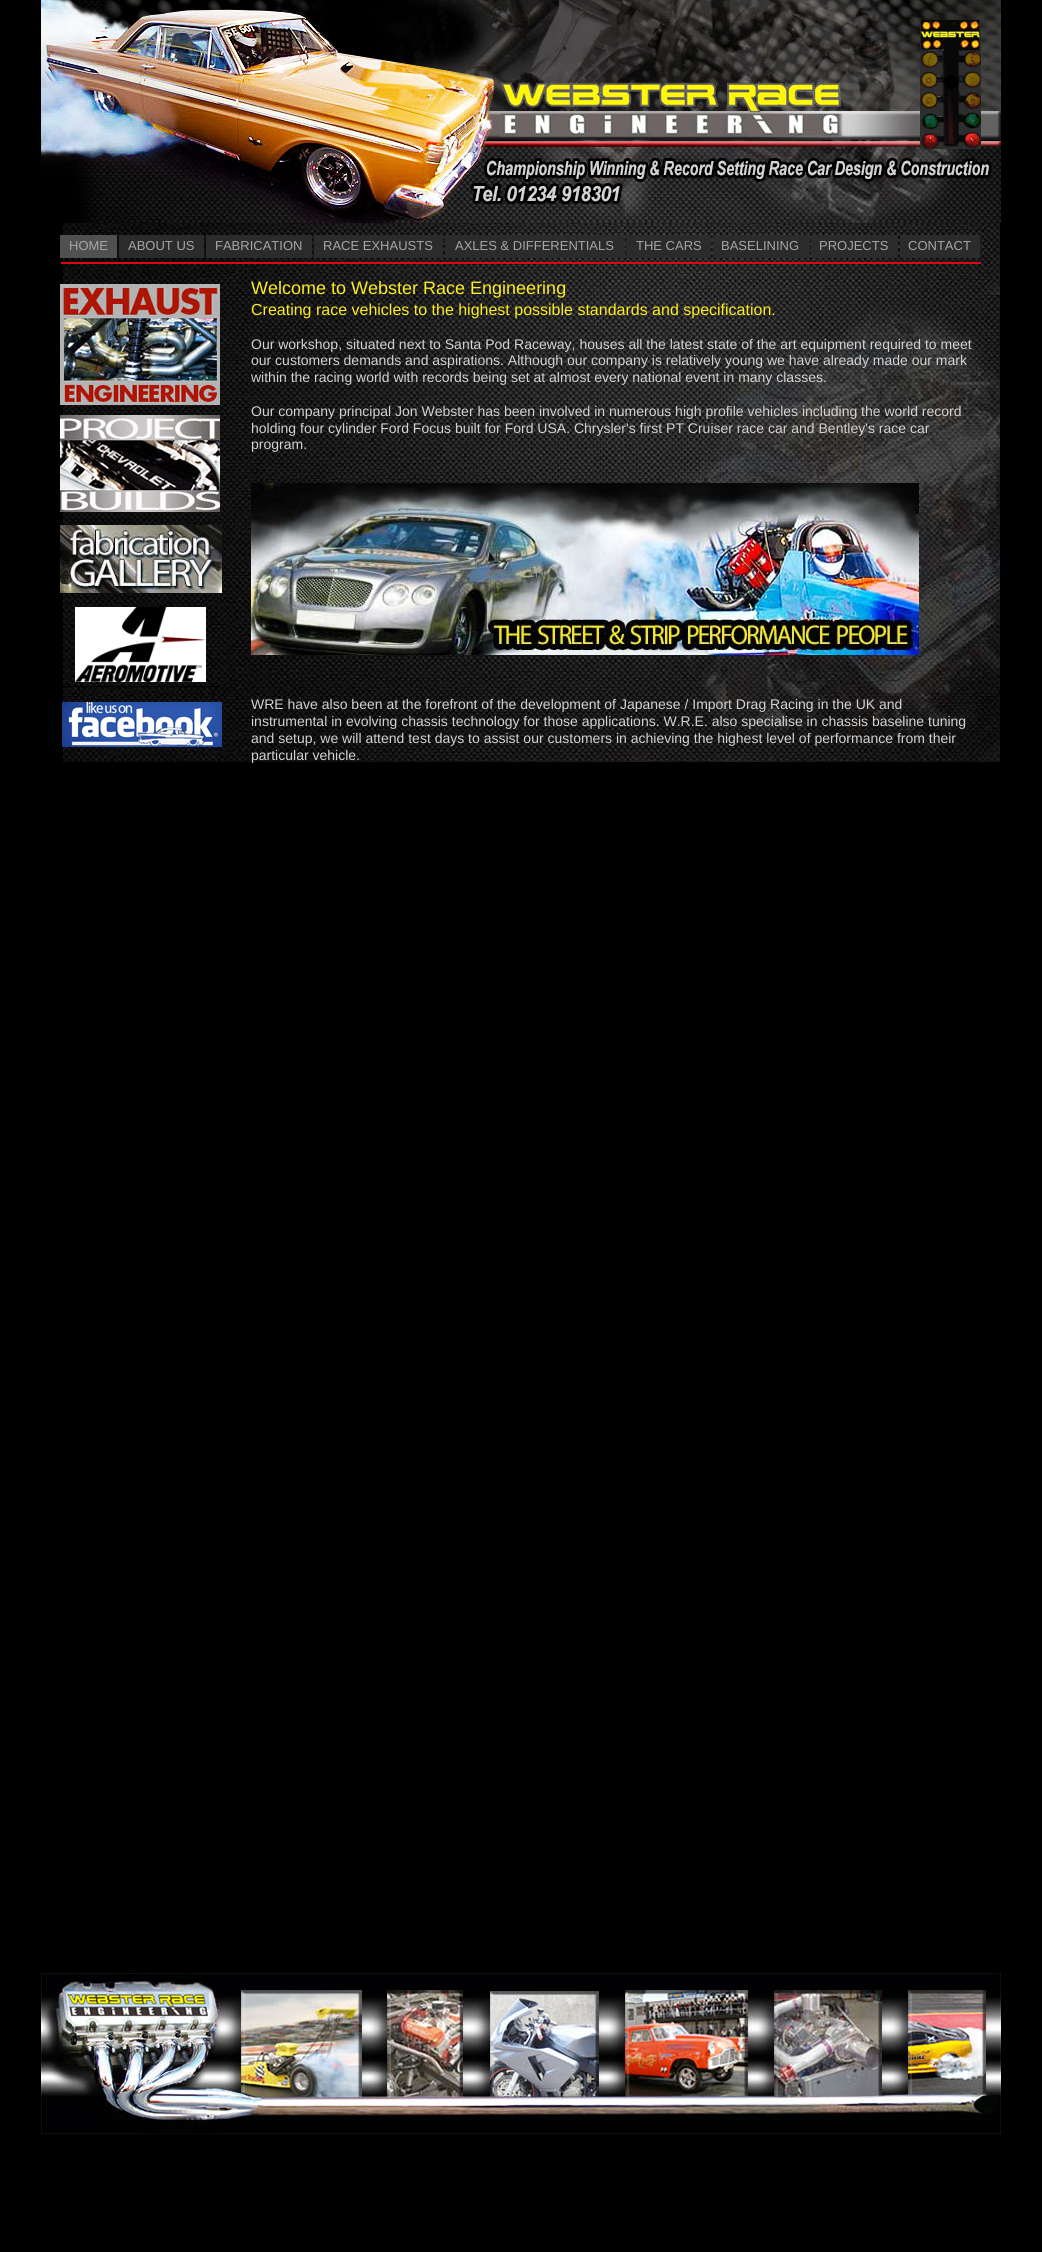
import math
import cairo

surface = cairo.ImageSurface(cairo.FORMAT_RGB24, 1042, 2252)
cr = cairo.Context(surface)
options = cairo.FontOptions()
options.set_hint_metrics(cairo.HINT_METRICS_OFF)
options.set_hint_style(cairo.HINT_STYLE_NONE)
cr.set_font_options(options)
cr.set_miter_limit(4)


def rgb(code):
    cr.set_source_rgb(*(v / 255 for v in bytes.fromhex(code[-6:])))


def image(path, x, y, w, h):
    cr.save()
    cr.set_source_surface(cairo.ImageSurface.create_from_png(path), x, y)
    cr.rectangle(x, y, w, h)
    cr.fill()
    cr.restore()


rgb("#000000")
cr.paint()
image("img/1.png", 41, 0, 960, 223)
image("img/2.png", 920, 20, 61, 129)
image("img/3.png", 63, 223, 937, 539)
for x, y, w, h, color in [
    (60, 235, 57, 23, "#515050"),
    (119, 235, 85, 23, "#2c2b2b"),
    (206, 235, 106, 23, "#2c2b2b"),
    (314, 235, 129, 23, "#2c2b2b"),
    (445, 235, 180, 23, "#2c2b2b"),
    (627, 235, 84, 23, "#2c2b2b"),
    (713, 235, 96, 23, "#2c2b2b"),
    (811, 235, 87, 23, "#2c2b2b"),
    (900, 235, 80, 23, "#2c2b2b"),
    (61, 262, 920, 2, "#dc0616"),
]:
    rgb(color)
    cr.rectangle(x, y, w, h)
    cr.fill()
image("img/4.png", 60, 284, 160, 121)
image("img/5.png", 251, 483, 668, 172)
image("img/6.png", 60, 415, 160, 97)
image("img/7.png", 60, 525, 162, 68)
image("img/8.png", 75, 607, 131, 75)
rgb("#000000")
cr.rectangle(63, 686, 156, 1)
cr.fill()
image("img/9.png", 62, 702, 160, 45)
image("img/10.png", 41, 1973, 960, 161)
cr.select_font_face("Liberation Sans")
cr.set_font_size(13)
rgb("#a8a4a4")
for x, y, s in [
    (69, 250, "HOME"),
    (128, 250, "ABOUT US"),
    (215, 250, "FABRICATION"),
    (323, 250, "RACE EXHAUSTS"),
    (455, 250, "AXLES & DIFFERENTIALS"),
    (636, 250, "THE CARS"),
    (721, 250, "BASELINING"),
    (819, 250, "PROJECTS"),
    (908, 250, "CONTACT"),
]:
    cr.move_to(x, y)
    cr.show_text(s)
cr.set_font_size(18)
rgb("#fcee21")
cr.move_to(251, 294)
cr.show_text("Welcome to Webster Race Engineering")
cr.set_font_size(16)
cr.move_to(251, 315)
cr.show_text("Creating race vehicles to the highest possible standards and specification.")
cr.set_font_size(14)
rgb("#d5d2d2")
for x, y, s in [
    (251, 349, "Our workshop, situated next to Santa Pod Raceway, houses all the latest state of the art equipment required to meet"),
    (251, 365, "our customers demands and aspirations. Although our company is relatively young we have already made our mark"),
    (251, 382, "within the racing world with records being set at almost every national event in many classes."),
    (251, 416, "Our company principal Jon Webster has been involved in numerous high profile vehicles including the world record"),
    (251, 433, "holding four cylinder Ford Focus built for Ford USA. Chrysler's first PT Cruiser race car and Bentley's race car"),
    (251, 449, "program."),
    (251, 709, "WRE have also been at the forefront of the development of Japanese / Import Drag Racing in the UK and"),
    (251, 726, "instrumental in evolving chassis technology for those applications. W.R.E. also specialise in chassis baseline tuning"),
    (251, 743, "and setup, we will attend test days to assist our customers in achieving the highest level of performance from their"),
    (251, 760, "particular vehicle."),
]:
    cr.move_to(x, y)
    cr.show_text(s)
surface.write_to_png("page.png")
